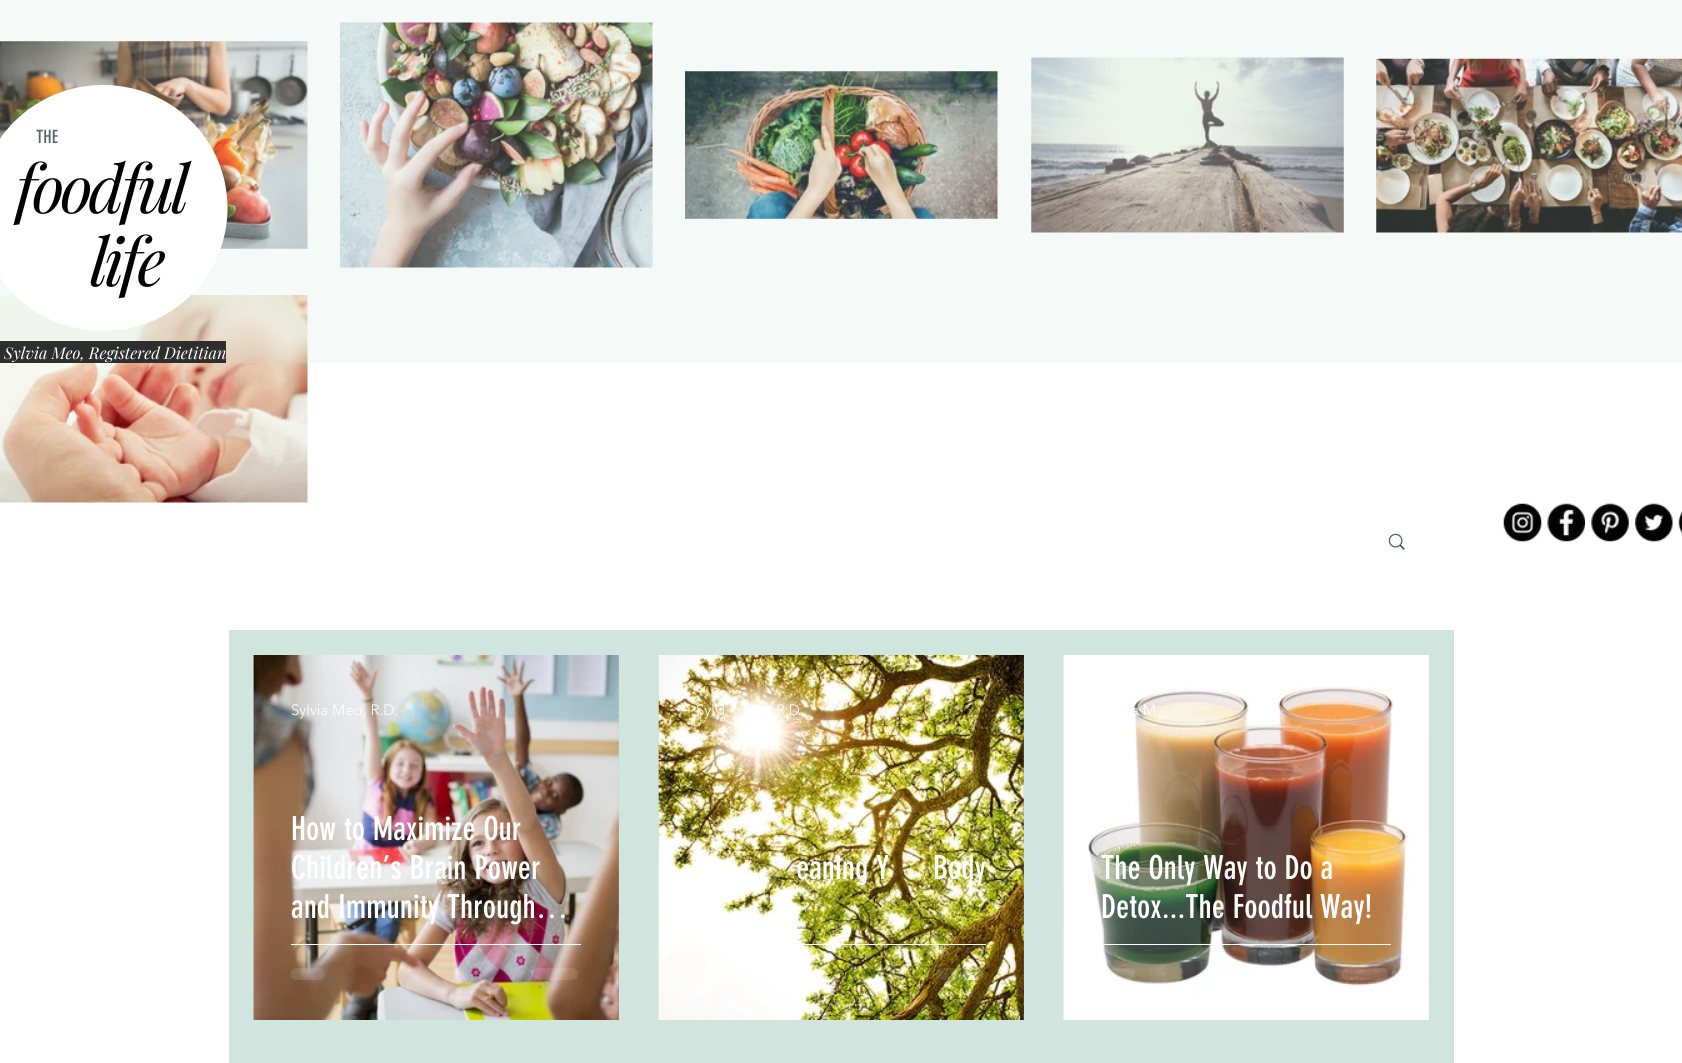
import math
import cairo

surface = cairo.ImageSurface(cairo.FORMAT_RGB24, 1682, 1063)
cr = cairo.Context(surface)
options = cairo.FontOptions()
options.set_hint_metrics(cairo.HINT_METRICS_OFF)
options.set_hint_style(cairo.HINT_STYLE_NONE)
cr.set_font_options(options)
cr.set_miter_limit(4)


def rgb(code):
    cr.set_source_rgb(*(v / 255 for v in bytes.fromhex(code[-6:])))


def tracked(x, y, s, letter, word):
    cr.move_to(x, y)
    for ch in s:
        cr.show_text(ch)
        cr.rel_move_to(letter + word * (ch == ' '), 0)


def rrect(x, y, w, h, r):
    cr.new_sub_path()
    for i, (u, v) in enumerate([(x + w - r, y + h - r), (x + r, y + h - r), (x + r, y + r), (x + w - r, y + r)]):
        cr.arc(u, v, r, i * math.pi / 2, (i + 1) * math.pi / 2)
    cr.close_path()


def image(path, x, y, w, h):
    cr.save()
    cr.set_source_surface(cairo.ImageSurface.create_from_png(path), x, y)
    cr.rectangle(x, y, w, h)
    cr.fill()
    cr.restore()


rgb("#ffffff")
cr.paint()
image("img/6.png", 0, 41, 308, 208)
image("img/7.png", 340, 22, 313, 246)
image("img/8.png", 685, 71, 313, 148)
image("img/9.png", 1031, 57, 313, 176)
image("img/10.png", 1376, 58, 306, 175)
image("img/11.png", 0, 295, 308, 208)
cr.set_source_rgba(0.816, 0.898, 0.871, 0.21)
cr.rectangle(0, 0, 1682, 363)
cr.fill()
rgb("#ffffff")
cr.new_path()
cr.move_to(103, 85)
cr.curve_to(172, 85, 227.5, 140, 227.5, 208)
cr.curve_to(227.5, 276, 172, 331, 103, 331)
cr.curve_to(34, 331, -21.5, 276, -21.5, 208)
cr.curve_to(-21.5, 140, 34, 85, 103, 85)
cr.close_path()
cr.fill()
rgb("#2f2e2e")
cr.rectangle(0, 341, 226, 22)
cr.fill()
image("img/1.png", 1503, 503, 39, 39)
image("img/2.png", 1547, 503, 38, 39)
image("img/3.png", 1591, 503, 38, 39)
image("img/4.png", 1635, 503, 38, 39)
image("img/5.png", 1678, 511, 4, 23)
rgb("#d0e5de")
cr.rectangle(229, 630, 1225, 433)
cr.fill()
image("img/12.png", 1388, 533, 17, 17)
image("img/13.png", 253, 655, 366, 365)
image("img/14.png", 253, 655, 366, 365)
rgb("#ffffff")
cr.rectangle(291, 944, 290, 1)
cr.fill()
cr.set_source_rgba(1, 1, 1, 0.12)
rrect(291, 968, 34, 12, 6)
cr.fill()
rrect(531, 968, 47, 12, 6)
cr.fill()
image("img/15.png", 658, 655, 366, 365)
image("img/16.png", 658, 655, 366, 365)
rgb("#ffffff")
cr.rectangle(696, 944, 290, 1)
cr.fill()
cr.set_source_rgba(1, 1, 1, 0.12)
rrect(936, 968, 47, 12, 6)
cr.fill()
image("img/17.png", 1063, 655, 366, 365)
image("img/18.png", 1063, 655, 366, 365)
rgb("#ffffff")
cr.rectangle(1101, 944, 290, 1)
cr.fill()
cr.set_source_rgba(1, 1, 1, 0.12)
rrect(1101, 968, 34, 12, 6)
cr.fill()
rrect(1341, 968, 47, 12, 6)
cr.fill()
cr.select_font_face("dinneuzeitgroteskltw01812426")
cr.set_font_size(18)
rgb("#5c686c")
cr.move_to(36, 143)
cr.show_text("THE")
cr.select_font_face("Playfair Display", cairo.FONT_SLANT_ITALIC)
cr.set_font_size(66)
rgb("#000000")
tracked(15, 213, "foodful", -4, 0)
tracked(90, 286, "life", -4, 0)
cr.set_font_size(16.25)
rgb("#ffffff")
cr.move_to(4, 359)
cr.show_text("Sylvia Meo, Registered Dietitian")
cr.select_font_face("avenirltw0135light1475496 Light")
cr.set_font_size(15)
cr.move_to(291, 715)
cr.show_text("Sylvia Meo, R.D.")
cr.select_font_face("dinneuzeitgroteskltw01812426")
cr.set_font_size(32.5)
for x, y, s in [
    (291, 840, "How to Maximize Our"),
    (291, 879, "Children’s Brain Power"),
    (291, 918, "and Immunity Through…"),
]:
    cr.move_to(x, y)
    cr.show_text(s)
cr.select_font_face("avenirltw0135light1475496 Light")
cr.set_font_size(15)
cr.move_to(696, 715)
cr.show_text("Sylvi")
cr.move_to(776, 715)
cr.show_text("R.D.")
cr.select_font_face("dinneuzeitgroteskltw01812426")
cr.set_font_size(32.5)
cr.move_to(796, 879)
cr.show_text("eaning Y")
cr.move_to(933, 879)
cr.show_text("Body")
cr.select_font_face("avenirltw0135light1475496 Light")
cr.set_font_size(15)
cr.move_to(1131, 715)
cr.show_text("a M")
cr.select_font_face("dinneuzeitgroteskltw01812426")
cr.set_font_size(32.5)
cr.move_to(1101, 879)
cr.show_text("The Only Way to Do a")
cr.move_to(1101, 918)
cr.show_text("Detox...The Foodful Way!")
surface.write_to_png("page.png")
